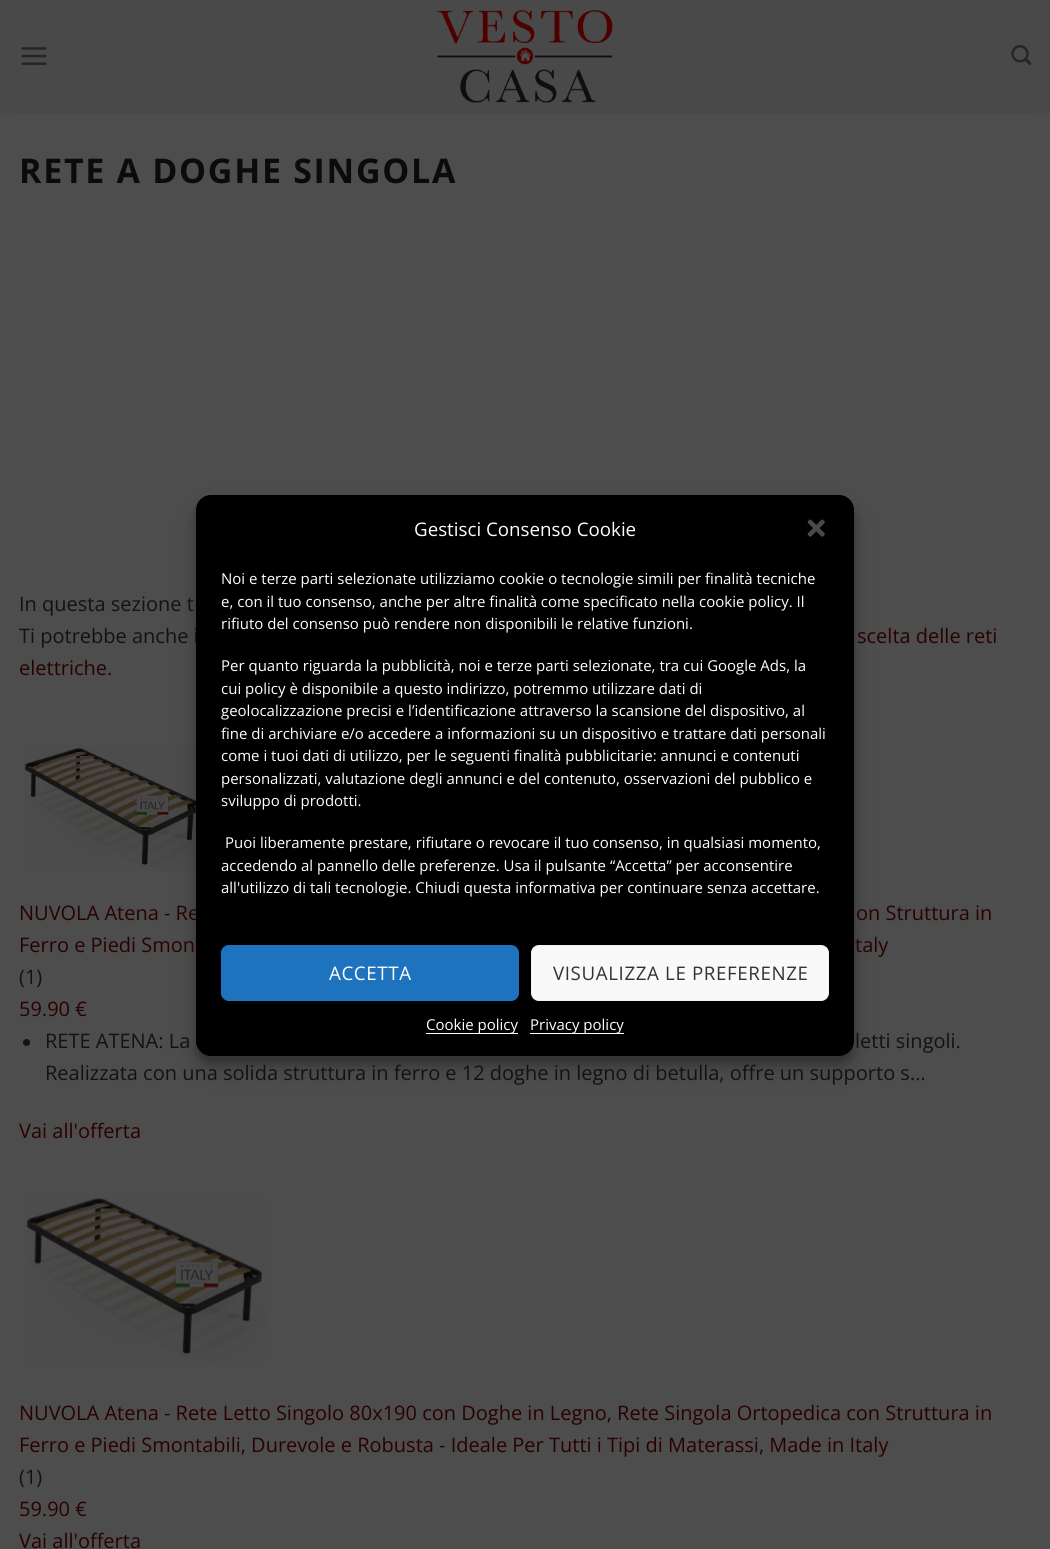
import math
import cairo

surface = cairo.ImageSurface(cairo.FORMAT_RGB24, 1050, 1549)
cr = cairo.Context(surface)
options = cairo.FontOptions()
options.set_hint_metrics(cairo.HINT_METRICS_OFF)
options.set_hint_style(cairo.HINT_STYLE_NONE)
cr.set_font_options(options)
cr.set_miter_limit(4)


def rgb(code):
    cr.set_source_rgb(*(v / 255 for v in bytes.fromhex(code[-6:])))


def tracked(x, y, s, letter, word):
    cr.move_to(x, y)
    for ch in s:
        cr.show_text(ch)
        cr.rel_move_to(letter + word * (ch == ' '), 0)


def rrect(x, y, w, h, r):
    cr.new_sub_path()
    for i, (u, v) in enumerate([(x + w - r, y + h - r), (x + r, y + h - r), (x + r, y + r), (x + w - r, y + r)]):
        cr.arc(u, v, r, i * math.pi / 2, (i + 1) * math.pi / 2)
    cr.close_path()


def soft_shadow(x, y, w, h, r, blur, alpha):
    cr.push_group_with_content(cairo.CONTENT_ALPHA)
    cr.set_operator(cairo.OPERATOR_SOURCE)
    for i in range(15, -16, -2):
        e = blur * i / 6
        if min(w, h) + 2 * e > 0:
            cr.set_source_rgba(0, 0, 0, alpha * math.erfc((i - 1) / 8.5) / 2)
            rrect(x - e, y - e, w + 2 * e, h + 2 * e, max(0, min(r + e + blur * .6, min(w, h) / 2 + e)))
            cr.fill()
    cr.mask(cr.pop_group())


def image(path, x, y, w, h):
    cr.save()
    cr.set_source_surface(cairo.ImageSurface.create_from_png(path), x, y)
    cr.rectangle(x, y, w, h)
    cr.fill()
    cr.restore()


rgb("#4d4d4d")
cr.paint()
rgb("#494949")
cr.rectangle(0, 0, 1050, 113)
cr.fill()
image("img/1.png", 21, 47, 26, 18)
image("img/2.png", 437, 10, 176, 93)
image("img/3.png", 1011, 45, 21, 20)
rgb("#474747")
cr.rectangle(19, 113, 1012, 1)
cr.fill()
image("img/4.png", 24, 746, 172, 125)
rgb("#121212")
cr.arc(26.5, 1042.5, 3.5, 0, 2 * math.pi)
cr.fill()
image("img/5.png", 26, 1198, 242, 164)
rgb("#000000")
soft_shadow(196, 503, 658, 561, 15, 4, 0.23)
soft_shadow(196, 508, 658, 561, 15, 12.5, 0.19)
cr.select_font_face("Open Sans", cairo.FONT_SLANT_NORMAL, cairo.FONT_WEIGHT_BOLD)
cr.set_font_size(34)
rgb("#0b0b0b")
tracked(19, 183, "RETE A DOGHE SINGOLA", 1.7, 0)
cr.select_font_face("Open Sans")
cr.set_font_size(20)
rgb("#121212")
cr.move_to(19, 611)
cr.show_text("In questa sezione t")
cr.move_to(19, 643)
cr.show_text("Ti potrebbe anche i")
rgb("#290101")
cr.move_to(857, 643)
cr.show_text("scelta delle reti")
cr.move_to(19, 675)
cr.show_text("elettriche")
rgb("#121212")
cr.move_to(107, 675)
cr.show_text(".")
rgb("#290101")
for x, y, s in [
    (19, 920, "NUVOLA Atena - Re"),
    (856, 920, "on Struttura in"),
    (19, 952, "Ferro e Piedi Smon"),
    (855, 952, "taly"),
]:
    cr.move_to(x, y)
    cr.show_text(s)
rgb("#121212")
cr.move_to(19, 984)
cr.show_text("(1)")
rgb("#290101")
cr.move_to(19, 1016)
cr.show_text("59.90 €")
rgb("#121212")
for x, y, s in [
    (45, 1048, "RETE ATENA: La"),
    (855, 1048, "letti singoli."),
    (45, 1080, "Realizzata con una solida struttura in ferro e 12 doghe in legno di betulla, offre un supporto s..."),
]:
    cr.move_to(x, y)
    cr.show_text(s)
rgb("#290101")
for x, y, s in [
    (19, 1138, "Vai all'offerta"),
    (19, 1420, "NUVOLA Atena - Rete Letto Singolo 80x190 con Doghe in Legno, Rete Singola Ortopedica con Struttura in"),
    (19, 1452, "Ferro e Piedi Smontabili, Durevole e Robusta - Ideale Per Tutti i Tipi di Materassi, Made in Italy"),
]:
    cr.move_to(x, y)
    cr.show_text(s)
rgb("#121212")
cr.move_to(19, 1484)
cr.show_text("(1)")
rgb("#290101")
cr.move_to(19, 1516)
cr.show_text("59.90 €")
cr.move_to(19, 1548)
cr.show_text("Vai all'offerta")
rgb("#000000")
rrect(196, 495, 658, 561, 15)
cr.fill()
cr.set_font_size(18.75)
rgb("#ffffff")
cr.move_to(414, 536)
cr.show_text("Gestisci Consenso Cookie")
image("img/6.png", 807, 519, 18, 18)
cr.set_font_size(15)
for x, y, s in [
    (221, 584, "Noi e terze parti selezionate utilizziamo cookie o tecnologie simili per finalità tecniche"),
    (221, 607, "e, con il tuo consenso, anche per altre finalità come specificato nella cookie policy. Il"),
    (221, 629, "rifiuto del consenso può rendere non disponibili le relative funzioni."),
    (221, 671, "Per quanto riguarda la pubblicità, noi e terze parti selezionate, tra cui Google Ads, la"),
    (221, 694, "cui policy è disponibile a questo indirizzo, potremmo utilizzare dati di"),
    (221, 716, "geolocalizzazione precisi e l’identificazione attraverso la scansione del dispositivo, al"),
    (221, 739, "fine di archiviare e/o accedere a informazioni su un dispositivo e trattare dati personali"),
    (221, 761, "come i tuoi dati di utilizzo, per le seguenti finalità pubblicitarie: annunci e contenuti"),
    (221, 784, "personalizzati, valutazione degli annunci e del contenuto, osservazioni del pubblico e"),
    (221, 806, "sviluppo di prodotti."),
    (225, 848, "Puoi liberamente prestare, rifiutare o revocare il tuo consenso, in qualsiasi momento,"),
    (221, 871, "accedendo al pannello delle preferenze. Usa il pulsante “Accetta” per acconsentire"),
    (221, 893, "all'utilizzo di tali tecnologie. Chiudi questa informativa per continuare senza accettare."),
]:
    cr.move_to(x, y)
    cr.show_text(s)
rgb("#1e73be")
rrect(221.5, 945.5, 297, 55, 7.5)
cr.fill_preserve()
cr.set_line_width(1)
cr.stroke()
cr.set_font_size(18.75)
rgb("#ffffff")
tracked(329, 980, "ACCETTA", 0.6, 0)
rgb("#f9f9f9")
rrect(531.5, 945.5, 297, 55, 7.5)
cr.fill_preserve()
rgb("#f2f2f2")
cr.stroke()
rgb("#333333")
tracked(553, 980, "VISUALIZZA LE PREFERENZE", 0.6, 0)
rgb("#ffffff")
cr.rectangle(426, 1033, 92, 1)
cr.fill()
cr.set_font_size(15)
cr.move_to(426, 1030)
cr.show_text("Cookie policy")
cr.rectangle(530, 1033, 94, 1)
cr.fill()
cr.move_to(530, 1030)
cr.show_text("Privacy policy")
surface.write_to_png("page.png")
